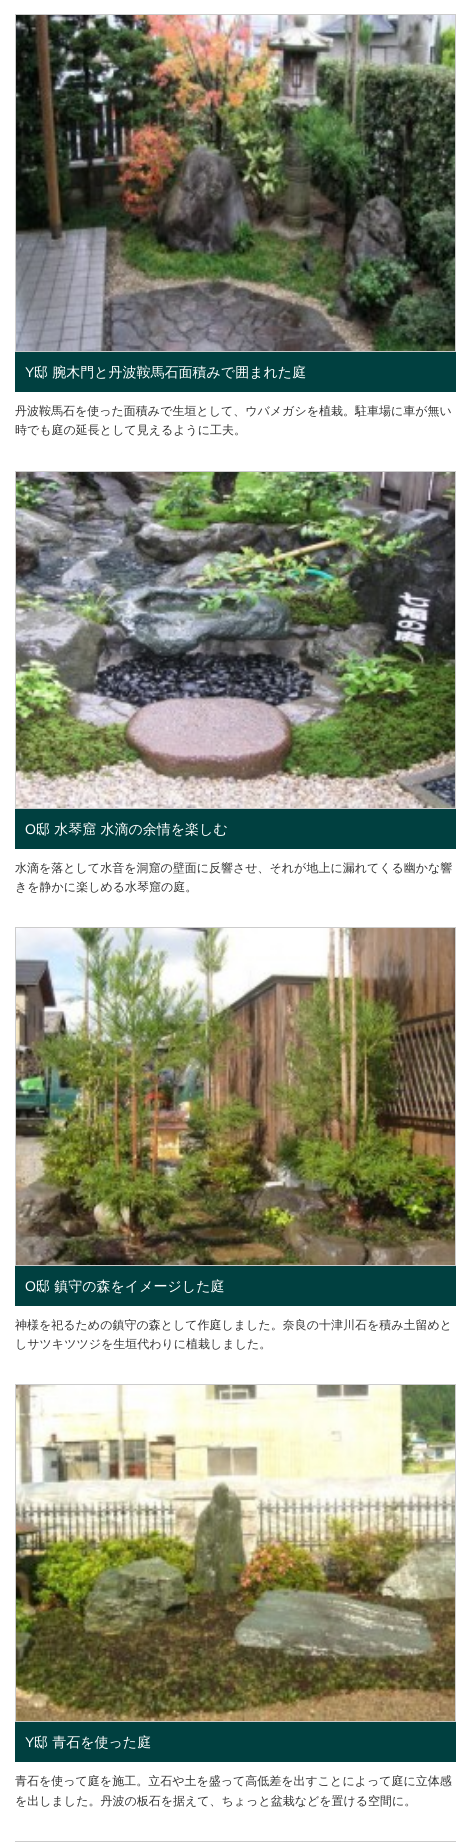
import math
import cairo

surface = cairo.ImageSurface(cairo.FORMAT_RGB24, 471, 1842)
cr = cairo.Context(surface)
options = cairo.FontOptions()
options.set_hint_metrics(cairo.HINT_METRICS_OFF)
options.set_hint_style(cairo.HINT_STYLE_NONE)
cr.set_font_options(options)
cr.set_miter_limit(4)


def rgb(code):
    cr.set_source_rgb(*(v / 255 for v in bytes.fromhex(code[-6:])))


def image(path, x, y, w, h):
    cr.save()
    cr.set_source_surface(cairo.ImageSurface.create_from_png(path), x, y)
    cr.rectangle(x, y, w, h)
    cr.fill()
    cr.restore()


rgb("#ffffff")
cr.paint()
cr.rectangle(15.5, 14.5, 440, 337)
rgb("#cccccc")
cr.set_line_width(1)
cr.stroke()
image("img/1.png", 16, 15, 439, 336)
rgb("#004040")
cr.rectangle(15, 352, 441, 40)
cr.fill()
cr.rectangle(15.5, 471.5, 440, 337)
rgb("#cccccc")
cr.stroke()
image("img/2.png", 16, 472, 439, 336)
rgb("#004040")
cr.rectangle(15, 809, 441, 40)
cr.fill()
cr.rectangle(15.5, 927.5, 440, 338)
rgb("#cccccc")
cr.stroke()
image("img/3.png", 16, 928, 439, 337)
rgb("#004040")
cr.rectangle(15, 1266, 441, 40)
cr.fill()
cr.rectangle(15.5, 1384.5, 440, 337)
rgb("#cccccc")
cr.stroke()
image("img/4.png", 16, 1385, 439, 336)
rgb("#004040")
cr.rectangle(15, 1722, 441, 40)
cr.fill()
cr.rectangle(15.5, 1841.5, 440, 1)
rgb("#cccccc")
cr.stroke()
cr.select_font_face("Liberation Sans")
cr.set_font_size(14)
rgb("#ffffff")
cr.move_to(25, 377)
cr.show_text("Y")
cr.select_font_face("WenQuanYi Zen Hei Medium")
cr.move_to(34, 377)
cr.show_text("邸 腕木門と丹波鞍馬石面積みで囲まれた庭")
cr.set_font_size(12)
rgb("#333333")
cr.move_to(15, 415)
cr.show_text("丹波鞍馬石を使った面積みで生垣として、ウバメガシを植栽。駐車場に車が無い")
cr.move_to(15, 434)
cr.show_text("時でも庭の延長として見えるように工夫。")
cr.select_font_face("Liberation Sans")
cr.set_font_size(14)
rgb("#ffffff")
cr.move_to(25, 834)
cr.show_text("O")
cr.select_font_face("WenQuanYi Zen Hei Medium")
cr.move_to(36, 834)
cr.show_text("邸 水琴窟 水滴の余情を楽しむ")
cr.set_font_size(12)
rgb("#333333")
cr.move_to(15, 872)
cr.show_text("水滴を落として水音を洞窟の壁面に反響させ、それが地上に漏れてくる幽かな響")
cr.move_to(15, 891)
cr.show_text("きを静かに楽しめる水琴窟の庭。")
cr.select_font_face("Liberation Sans")
cr.set_font_size(14)
rgb("#ffffff")
cr.move_to(25, 1291)
cr.show_text("O")
cr.select_font_face("WenQuanYi Zen Hei Medium")
cr.move_to(36, 1291)
cr.show_text("邸 鎮守の森をイメージした庭")
cr.set_font_size(12)
rgb("#333333")
cr.move_to(15, 1329)
cr.show_text("神様を祀るための鎮守の森として作庭しました。奈良の十津川石を積み土留めと")
cr.move_to(15, 1348)
cr.show_text("しサツキツツジを生垣代わりに植栽しました。")
cr.select_font_face("Liberation Sans")
cr.set_font_size(14)
rgb("#ffffff")
cr.move_to(25, 1747)
cr.show_text("Y")
cr.select_font_face("WenQuanYi Zen Hei Medium")
cr.move_to(34, 1747)
cr.show_text("邸 青石を使った庭")
cr.set_font_size(12)
rgb("#333333")
cr.move_to(15, 1785)
cr.show_text("青石を使って庭を施工。立石や土を盛って高低差を出すことによって庭に立体感")
cr.move_to(15, 1805)
cr.show_text("を出しました。丹波の板石を据えて、ちょっと盆栽などを置ける空間に。")
surface.write_to_png("page.png")
